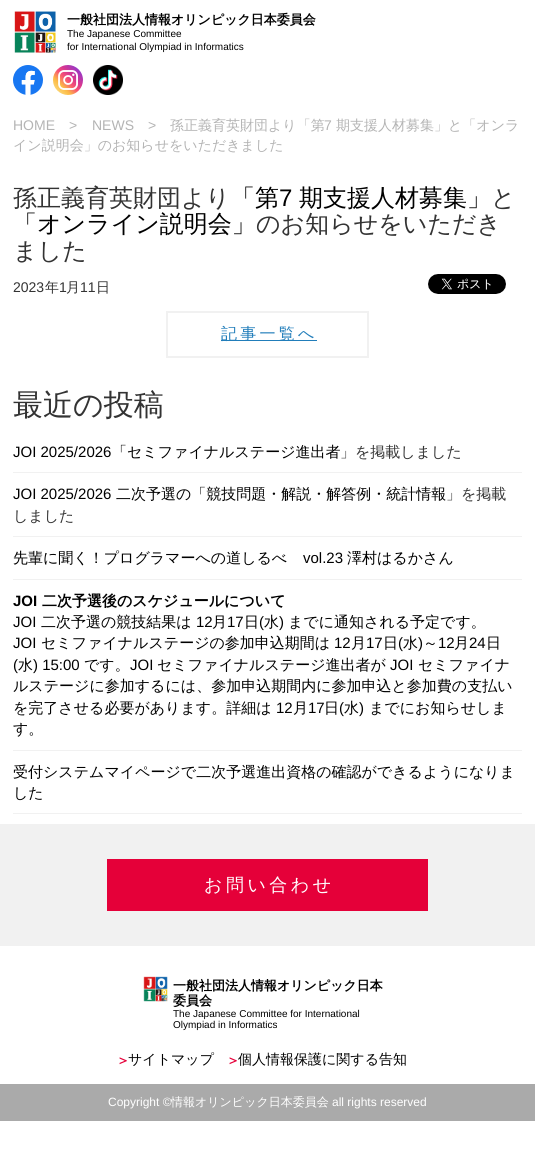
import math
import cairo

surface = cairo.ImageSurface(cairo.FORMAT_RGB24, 535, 1172)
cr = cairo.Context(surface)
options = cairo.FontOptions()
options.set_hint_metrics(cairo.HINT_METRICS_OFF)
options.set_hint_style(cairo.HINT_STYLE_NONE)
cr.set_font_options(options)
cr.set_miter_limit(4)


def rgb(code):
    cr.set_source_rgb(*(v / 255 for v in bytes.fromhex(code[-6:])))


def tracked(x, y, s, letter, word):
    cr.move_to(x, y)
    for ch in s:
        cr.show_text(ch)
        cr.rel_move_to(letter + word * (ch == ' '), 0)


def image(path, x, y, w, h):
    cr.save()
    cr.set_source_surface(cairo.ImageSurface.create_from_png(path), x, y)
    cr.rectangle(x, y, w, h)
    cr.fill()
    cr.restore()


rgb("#ffffff")
cr.paint()
image("img/1.png", 14, 11, 42, 42)
image("img/2.png", 13, 65, 30, 30)
image("img/3.png", 53, 65, 30, 30)
image("img/4.png", 93, 65, 30, 30)
image("img/5.png", 428, 274, 78, 20)
cr.rectangle(167, 312, 201, 45)
rgb("#f1f1f1")
cr.stroke()
for x, y, w, h, color in [
    (221, 340, 96, 1, "#217dba"),
    (13, 472, 509, 1, "#f1f1f1"),
    (13, 536, 509, 1, "#f1f1f1"),
    (13, 579, 509, 1, "#f1f1f1"),
    (13, 750, 509, 1, "#f1f1f1"),
    (13, 813, 509, 1, "#f1f1f1"),
    (0, 824, 535, 122, "#f1f1f1"),
    (107, 859, 321, 52, "#e50039"),
]:
    rgb(color)
    cr.rectangle(x, y, w, h)
    cr.fill()
image("img/6.png", 143, 976, 25, 26)
rgb("#aaaaaa")
cr.rectangle(0, 1084, 535, 37)
cr.fill()
cr.select_font_face("WenQuanYi Zen Hei", cairo.FONT_SLANT_NORMAL, cairo.FONT_WEIGHT_BOLD)
cr.set_font_size(13)
rgb("#000000")
cr.move_to(67, 24)
cr.show_text("一般社団法人情報オリンピック日本委員会")
cr.select_font_face("Liberation Sans")
cr.set_font_size(10)
cr.move_to(67, 37)
cr.show_text("The Japanese Committee")
cr.move_to(67, 50)
cr.show_text("for International Olympiad in Informatics")
cr.set_font_size(14)
rgb("#b4b4b4")
for x, y, s in [
    (13, 130, "HOME"),
    (69, 130, ">"),
    (92, 130, "NEWS"),
    (148, 130, ">"),
]:
    cr.move_to(x, y)
    cr.show_text(s)
cr.select_font_face("WenQuanYi Zen Hei Medium")
cr.move_to(170, 130)
cr.show_text("孫正義育英財団より「第")
cr.select_font_face("Liberation Sans")
cr.move_to(324, 130)
cr.show_text("7")
cr.select_font_face("WenQuanYi Zen Hei Medium")
cr.move_to(336, 130)
cr.show_text("期支援人材募集」と「オンラ")
cr.move_to(13, 150)
cr.show_text("イン説明会」のお知らせをいただきました")
cr.set_font_size(24)
rgb("#333333")
cr.move_to(13, 206)
cr.show_text("孫正義育英財団より")
rgb("#000000")
cr.move_to(231, 206)
cr.show_text("「第")
cr.select_font_face("Liberation Sans")
cr.move_to(279, 206)
cr.show_text("7")
cr.select_font_face("WenQuanYi Zen Hei Medium")
cr.move_to(299, 206)
cr.show_text("期支援人材募集」")
rgb("#333333")
cr.move_to(491, 206)
cr.show_text("と")
rgb("#000000")
cr.move_to(13, 232)
cr.show_text("「オンライン説明会」")
rgb("#333333")
cr.move_to(256, 232)
cr.show_text("のお知らせをいただき")
cr.move_to(13, 259)
cr.show_text("ました")
cr.select_font_face("Liberation Sans")
cr.set_font_size(14)
cr.move_to(13, 292)
cr.show_text("2023")
cr.select_font_face("WenQuanYi Zen Hei Medium")
cr.move_to(45, 292)
cr.show_text("年")
cr.select_font_face("Liberation Sans")
cr.move_to(59, 292)
cr.show_text("1")
cr.select_font_face("WenQuanYi Zen Hei Medium")
cr.move_to(66, 292)
cr.show_text("月")
cr.select_font_face("Liberation Sans")
cr.move_to(80, 292)
cr.show_text("11")
cr.select_font_face("WenQuanYi Zen Hei Medium")
cr.move_to(96, 292)
cr.show_text("日")
cr.set_font_size(16)
rgb("#217dba")
tracked(221, 339, "記事一覧へ", 3.25, 0)
cr.set_font_size(30)
rgb("#333333")
cr.move_to(13, 415)
cr.show_text("最近の投稿")
cr.select_font_face("Liberation Sans")
cr.set_font_size(15)
rgb("#000000")
cr.move_to(13, 457)
cr.show_text("JOI 2025/2026")
cr.select_font_face("WenQuanYi Zen Hei Medium")
cr.move_to(112, 457)
cr.show_text("「セミファイナルステージ進出者")
rgb("#333333")
cr.move_to(340, 457)
cr.show_text("」を掲載しました")
cr.select_font_face("Liberation Sans")
rgb("#000000")
cr.move_to(13, 499)
cr.show_text("JOI 2025/2026")
cr.select_font_face("WenQuanYi Zen Hei Medium")
cr.move_to(116, 499)
cr.show_text("二次予選の「競技問題・解説・解答例・統計情報")
rgb("#333333")
cr.move_to(446, 499)
cr.show_text("」を掲載")
cr.move_to(13, 521)
cr.show_text("しました")
rgb("#000000")
cr.move_to(13, 563)
cr.show_text("先輩に聞く！プログラマーへの道しるべ")
cr.select_font_face("Liberation Sans")
cr.move_to(303, 563)
cr.show_text("vol.23")
cr.select_font_face("WenQuanYi Zen Hei Medium")
cr.move_to(347, 563)
cr.show_text("澤村はるかさん")
cr.select_font_face("Liberation Sans", cairo.FONT_SLANT_NORMAL, cairo.FONT_WEIGHT_BOLD)
cr.move_to(13, 606)
cr.show_text("JOI")
cr.select_font_face("WenQuanYi Zen Hei", cairo.FONT_SLANT_NORMAL, cairo.FONT_WEIGHT_BOLD)
cr.move_to(42, 606)
cr.show_text("二次予選後のスケジュールについて")
cr.select_font_face("Liberation Sans")
cr.move_to(13, 627)
cr.show_text("JOI")
cr.select_font_face("WenQuanYi Zen Hei Medium")
cr.move_to(41, 627)
cr.show_text("二次予選の競技結果は")
cr.select_font_face("Liberation Sans")
cr.move_to(196, 627)
cr.show_text("12")
cr.select_font_face("WenQuanYi Zen Hei Medium")
cr.move_to(212, 627)
cr.show_text("月")
cr.select_font_face("Liberation Sans")
cr.move_to(227, 627)
cr.show_text("17")
cr.select_font_face("WenQuanYi Zen Hei Medium")
cr.move_to(244, 627)
cr.show_text("日")
cr.select_font_face("Liberation Sans")
cr.move_to(259, 627)
cr.show_text("(")
cr.select_font_face("WenQuanYi Zen Hei Medium")
cr.move_to(264, 627)
cr.show_text("水")
cr.select_font_face("Liberation Sans")
cr.move_to(279, 627)
cr.show_text(")")
cr.select_font_face("WenQuanYi Zen Hei Medium")
cr.move_to(288, 627)
cr.show_text("までに通知される予定です。")
cr.select_font_face("Liberation Sans")
cr.move_to(13, 648)
cr.show_text("JOI")
cr.select_font_face("WenQuanYi Zen Hei Medium")
cr.move_to(41, 648)
cr.show_text("セミファイナルステージの参加申込期間は")
cr.select_font_face("Liberation Sans")
cr.move_to(334, 648)
cr.show_text("12")
cr.select_font_face("WenQuanYi Zen Hei Medium")
cr.move_to(351, 648)
cr.show_text("月")
cr.select_font_face("Liberation Sans")
cr.move_to(366, 648)
cr.show_text("17")
cr.select_font_face("WenQuanYi Zen Hei Medium")
cr.move_to(383, 648)
cr.show_text("日")
cr.select_font_face("Liberation Sans")
cr.move_to(398, 648)
cr.show_text("(")
cr.select_font_face("WenQuanYi Zen Hei Medium")
cr.move_to(403, 648)
cr.show_text("水")
cr.select_font_face("Liberation Sans")
cr.move_to(418, 648)
cr.show_text(")")
cr.select_font_face("WenQuanYi Zen Hei Medium")
cr.move_to(423, 648)
cr.show_text("～")
cr.select_font_face("Liberation Sans")
cr.move_to(438, 648)
cr.show_text("12")
cr.select_font_face("WenQuanYi Zen Hei Medium")
cr.move_to(454, 648)
cr.show_text("月")
cr.select_font_face("Liberation Sans")
cr.move_to(469, 648)
cr.show_text("24")
cr.select_font_face("WenQuanYi Zen Hei Medium")
cr.move_to(486, 648)
cr.show_text("日")
cr.select_font_face("Liberation Sans")
cr.move_to(13, 670)
cr.show_text("(")
cr.select_font_face("WenQuanYi Zen Hei Medium")
cr.move_to(18, 670)
cr.show_text("水")
cr.select_font_face("Liberation Sans")
cr.move_to(33, 670)
cr.show_text(") 15:00")
cr.select_font_face("WenQuanYi Zen Hei Medium")
cr.move_to(84, 670)
cr.show_text("です。")
cr.select_font_face("Liberation Sans")
cr.move_to(130, 670)
cr.show_text("JOI")
cr.select_font_face("WenQuanYi Zen Hei Medium")
cr.move_to(157, 670)
cr.show_text("セミファイナルステージ進出者が")
cr.select_font_face("Liberation Sans")
cr.move_to(390, 670)
cr.show_text("JOI")
cr.select_font_face("WenQuanYi Zen Hei Medium")
for x, y, s in [
    (418, 670, "セミファイナ"),
    (13, 691, "ルステージに参加するには、参加申込期間内に参加申込と参加費の支払い"),
    (13, 713, "を完了させる必要があります。詳細は"),
]:
    cr.move_to(x, y)
    cr.show_text(s)
cr.select_font_face("Liberation Sans")
cr.move_to(276, 713)
cr.show_text("12")
cr.select_font_face("WenQuanYi Zen Hei Medium")
cr.move_to(293, 713)
cr.show_text("月")
cr.select_font_face("Liberation Sans")
cr.move_to(308, 713)
cr.show_text("17")
cr.select_font_face("WenQuanYi Zen Hei Medium")
cr.move_to(324, 713)
cr.show_text("日")
cr.select_font_face("Liberation Sans")
cr.move_to(339, 713)
cr.show_text("(")
cr.select_font_face("WenQuanYi Zen Hei Medium")
cr.move_to(344, 713)
cr.show_text("水")
cr.select_font_face("Liberation Sans")
cr.move_to(359, 713)
cr.show_text(")")
cr.select_font_face("WenQuanYi Zen Hei Medium")
for x, y, s in [
    (369, 713, "までにお知らせしま"),
    (13, 734, "す。"),
    (13, 777, "受付システムマイページで二次予選進出資格の確認ができるようになりま"),
    (13, 798, "した"),
]:
    cr.move_to(x, y)
    cr.show_text(s)
cr.set_font_size(18)
rgb("#ffffff")
tracked(204, 891, "お問い合わせ", 3.5, 0)
cr.select_font_face("WenQuanYi Zen Hei", cairo.FONT_SLANT_NORMAL, cairo.FONT_WEIGHT_BOLD)
cr.set_font_size(13)
rgb("#000000")
cr.move_to(173, 990)
cr.show_text("一般社団法人情報オリンピック日本")
cr.move_to(173, 1005)
cr.show_text("委員会")
cr.select_font_face("Liberation Sans")
cr.set_font_size(10)
cr.move_to(173, 1017)
cr.show_text("The Japanese Committee for International")
cr.move_to(173, 1028)
cr.show_text("Olympiad in Informatics")
cr.select_font_face("WenQuanYi Zen Hei", cairo.FONT_SLANT_NORMAL, cairo.FONT_WEIGHT_BOLD)
cr.set_font_size(14)
rgb("#e50039")
cr.move_to(116, 1065)
cr.show_text("＞")
cr.select_font_face("WenQuanYi Zen Hei Medium")
rgb("#000000")
cr.move_to(128, 1064)
cr.show_text("サイトマップ")
cr.select_font_face("WenQuanYi Zen Hei", cairo.FONT_SLANT_NORMAL, cairo.FONT_WEIGHT_BOLD)
rgb("#e50039")
cr.move_to(226, 1065)
cr.show_text("＞")
cr.select_font_face("WenQuanYi Zen Hei Medium")
rgb("#000000")
cr.move_to(238, 1064)
cr.show_text("個人情報保護に関する告知")
cr.select_font_face("Liberation Sans")
cr.set_font_size(12)
rgb("#ffffff")
cr.move_to(108, 1106)
cr.show_text("Copyright ©")
cr.select_font_face("WenQuanYi Zen Hei Medium")
cr.move_to(171, 1106)
cr.show_text("情報オリンピック日本委員会")
cr.select_font_face("Liberation Sans")
cr.move_to(332, 1106)
cr.show_text("all rights reserved")
surface.write_to_png("page.png")
